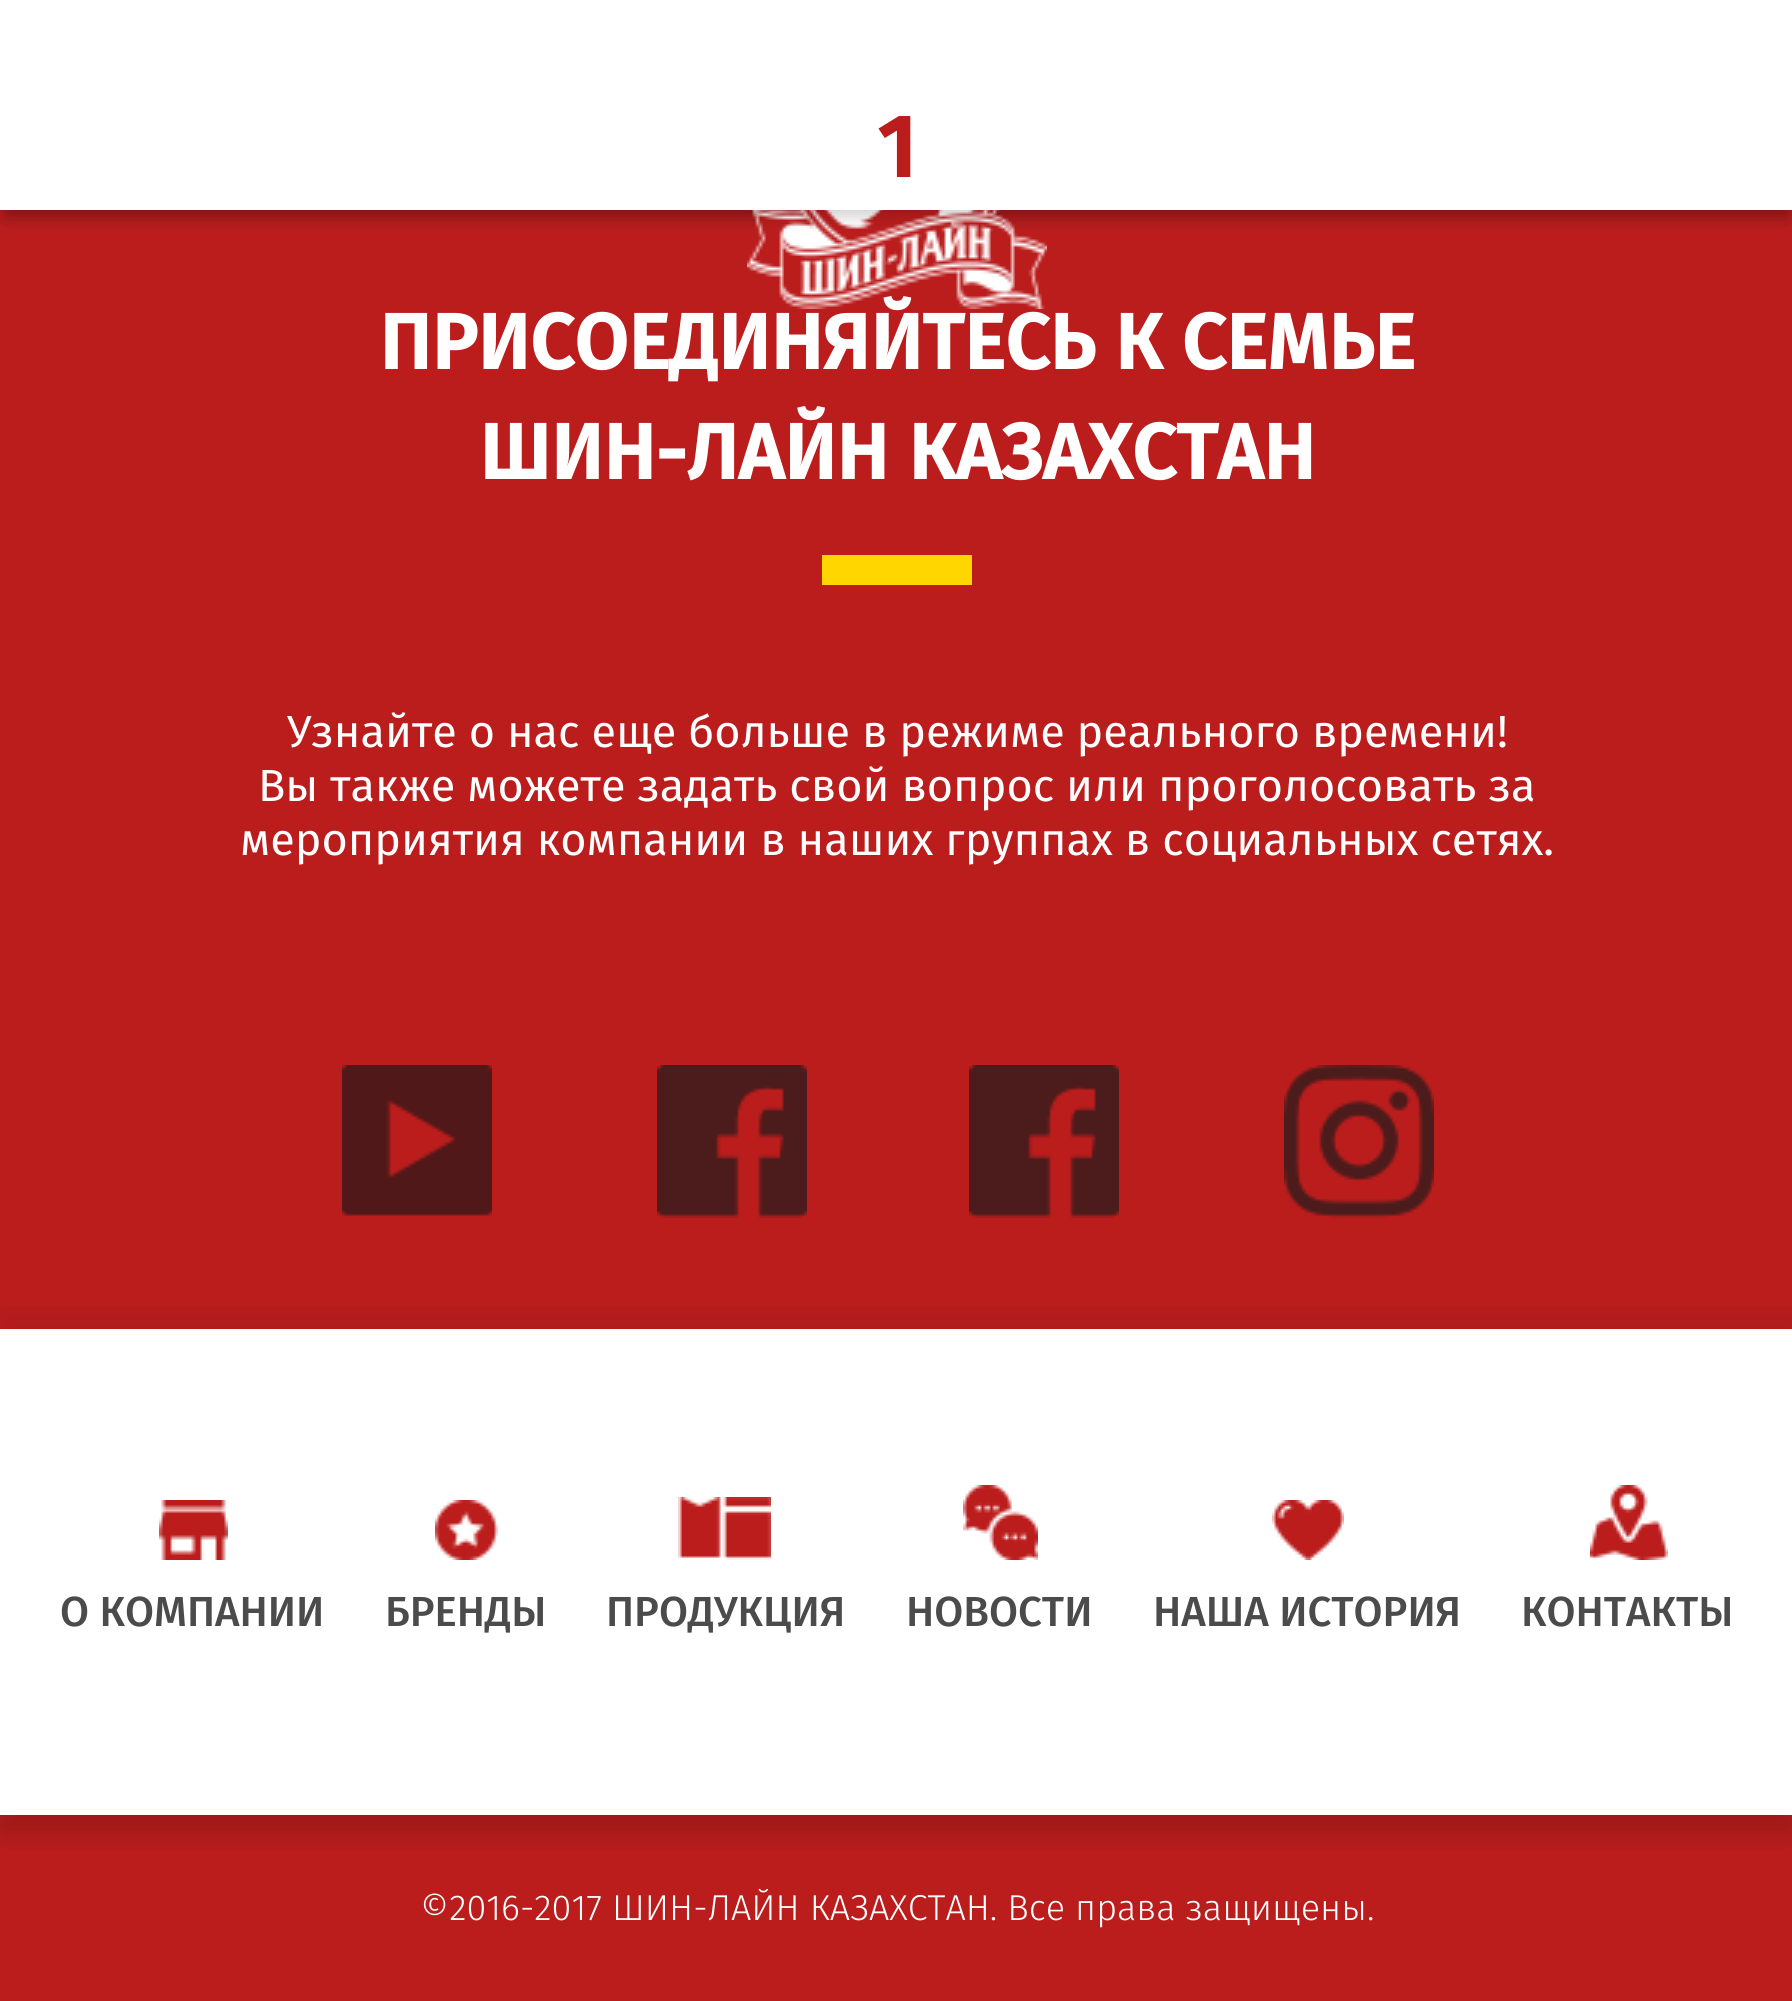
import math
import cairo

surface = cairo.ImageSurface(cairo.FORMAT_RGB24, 1792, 2001)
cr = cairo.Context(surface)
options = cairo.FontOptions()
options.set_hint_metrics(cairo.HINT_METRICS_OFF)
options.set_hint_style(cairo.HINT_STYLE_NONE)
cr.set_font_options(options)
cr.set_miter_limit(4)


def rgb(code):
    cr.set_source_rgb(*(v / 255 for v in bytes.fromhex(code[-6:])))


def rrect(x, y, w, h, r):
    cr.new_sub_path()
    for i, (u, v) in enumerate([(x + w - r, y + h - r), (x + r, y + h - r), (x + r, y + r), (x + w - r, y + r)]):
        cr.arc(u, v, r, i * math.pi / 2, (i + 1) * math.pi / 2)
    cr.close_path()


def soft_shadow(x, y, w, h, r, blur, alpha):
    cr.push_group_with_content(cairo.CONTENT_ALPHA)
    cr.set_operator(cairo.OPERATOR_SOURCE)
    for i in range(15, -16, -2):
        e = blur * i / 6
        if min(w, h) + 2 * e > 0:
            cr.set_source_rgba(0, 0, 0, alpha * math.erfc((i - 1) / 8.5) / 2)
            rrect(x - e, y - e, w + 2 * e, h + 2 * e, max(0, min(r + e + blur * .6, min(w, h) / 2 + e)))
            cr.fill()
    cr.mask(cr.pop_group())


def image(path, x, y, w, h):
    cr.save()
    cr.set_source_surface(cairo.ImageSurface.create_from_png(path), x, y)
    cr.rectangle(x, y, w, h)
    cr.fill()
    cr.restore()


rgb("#ffffff")
cr.paint()
rgb("#bb1d1d")
cr.rectangle(0, 210, 1792, 1119)
cr.fill()
rgb("#000000")
soft_shadow(6, 18, 1782, 198, 0, 9, 0.2)
rgb("#ffd600")
cr.rectangle(822, 555, 150, 30)
cr.fill()
image("img/2.png", 342, 1065, 150, 151)
image("img/3.png", 657, 1065, 150, 153)
image("img/3.png", 969, 1065, 150, 153)
image("img/4.png", 1284, 1065, 150, 153)
rgb("#bb1d1d")
cr.rectangle(0, 1815, 1792, 186)
cr.fill()
cr.save()
cr.rectangle(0, 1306, 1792, 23)
cr.clip()
rgb("#000000")
soft_shadow(0, 1314, 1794, 486, 0, 13.5, 0.07)
cr.restore()
cr.save()
cr.rectangle(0, 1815, 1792, 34)
cr.clip()
rgb("#000000")
soft_shadow(0, 1347, 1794, 486, 0, 13.5, 0.17)
cr.restore()
image("img/5.png", 159, 1500, 69, 60)
image("img/6.png", 435, 1500, 63, 60)
image("img/7.png", 678, 1497, 93, 63)
image("img/8.png", 963, 1485, 75, 75)
image("img/9.png", 1272, 1500, 72, 60)
image("img/10.png", 1590, 1485, 78, 75)
cr.select_font_face("Fira Sans", cairo.FONT_SLANT_NORMAL, cairo.FONT_WEIGHT_BOLD)
cr.set_font_size(78)
rgb("#ffffff")
cr.move_to(379, 369)
cr.show_text("ПРИСОЕДИНЯЙТЕСЬ К СЕМЬЕ")
image("img/1.png", 747, 210, 300, 99)
rgb("#000000")
soft_shadow(6, 18, 1782, 198, 0, 9, 0.2)
rgb("#ffffff")
cr.rectangle(0, 0, 1792, 210)
cr.fill()
cr.set_font_size(87)
rgb("#bb1d1d")
cr.move_to(877, 177)
cr.show_text("1")
cr.set_font_size(78)
rgb("#ffffff")
cr.move_to(479, 479)
cr.show_text("ШИН-ЛАЙН КАЗАХСТАН")
cr.select_font_face("Fira Sans")
cr.set_font_size(45)
for x, y, s in [
    (287, 747, "Узнайте о нас еще больше в режиме реального времени!"),
    (258, 801, "Вы также можете задать свой вопрос или проголосовать за"),
    (240, 855, "мероприятия компании в наших группах в социальных сетях."),
]:
    cr.move_to(x, y)
    cr.show_text(s)
cr.select_font_face("Fira Sans Medium")
cr.set_font_size(42)
rgb("#4b4b4b")
for x, y, s in [
    (60, 1626, "О КОМПАНИИ"),
    (385, 1626, "БРЕНДЫ"),
    (606, 1626, "ПРОДУКЦИЯ"),
    (906, 1626, "НОВОСТИ"),
    (1153, 1626, "НАША ИСТОРИЯ"),
    (1521, 1626, "КОНТАКТЫ"),
]:
    cr.move_to(x, y)
    cr.show_text(s)
cr.select_font_face("Fira Sans Light")
cr.set_font_size(36)
rgb("#ffffff")
cr.move_to(420, 1920)
cr.show_text("©2016-2017 ШИН-ЛАЙН КАЗАХСТАН. Все права защищены.")
surface.write_to_png("page.png")
